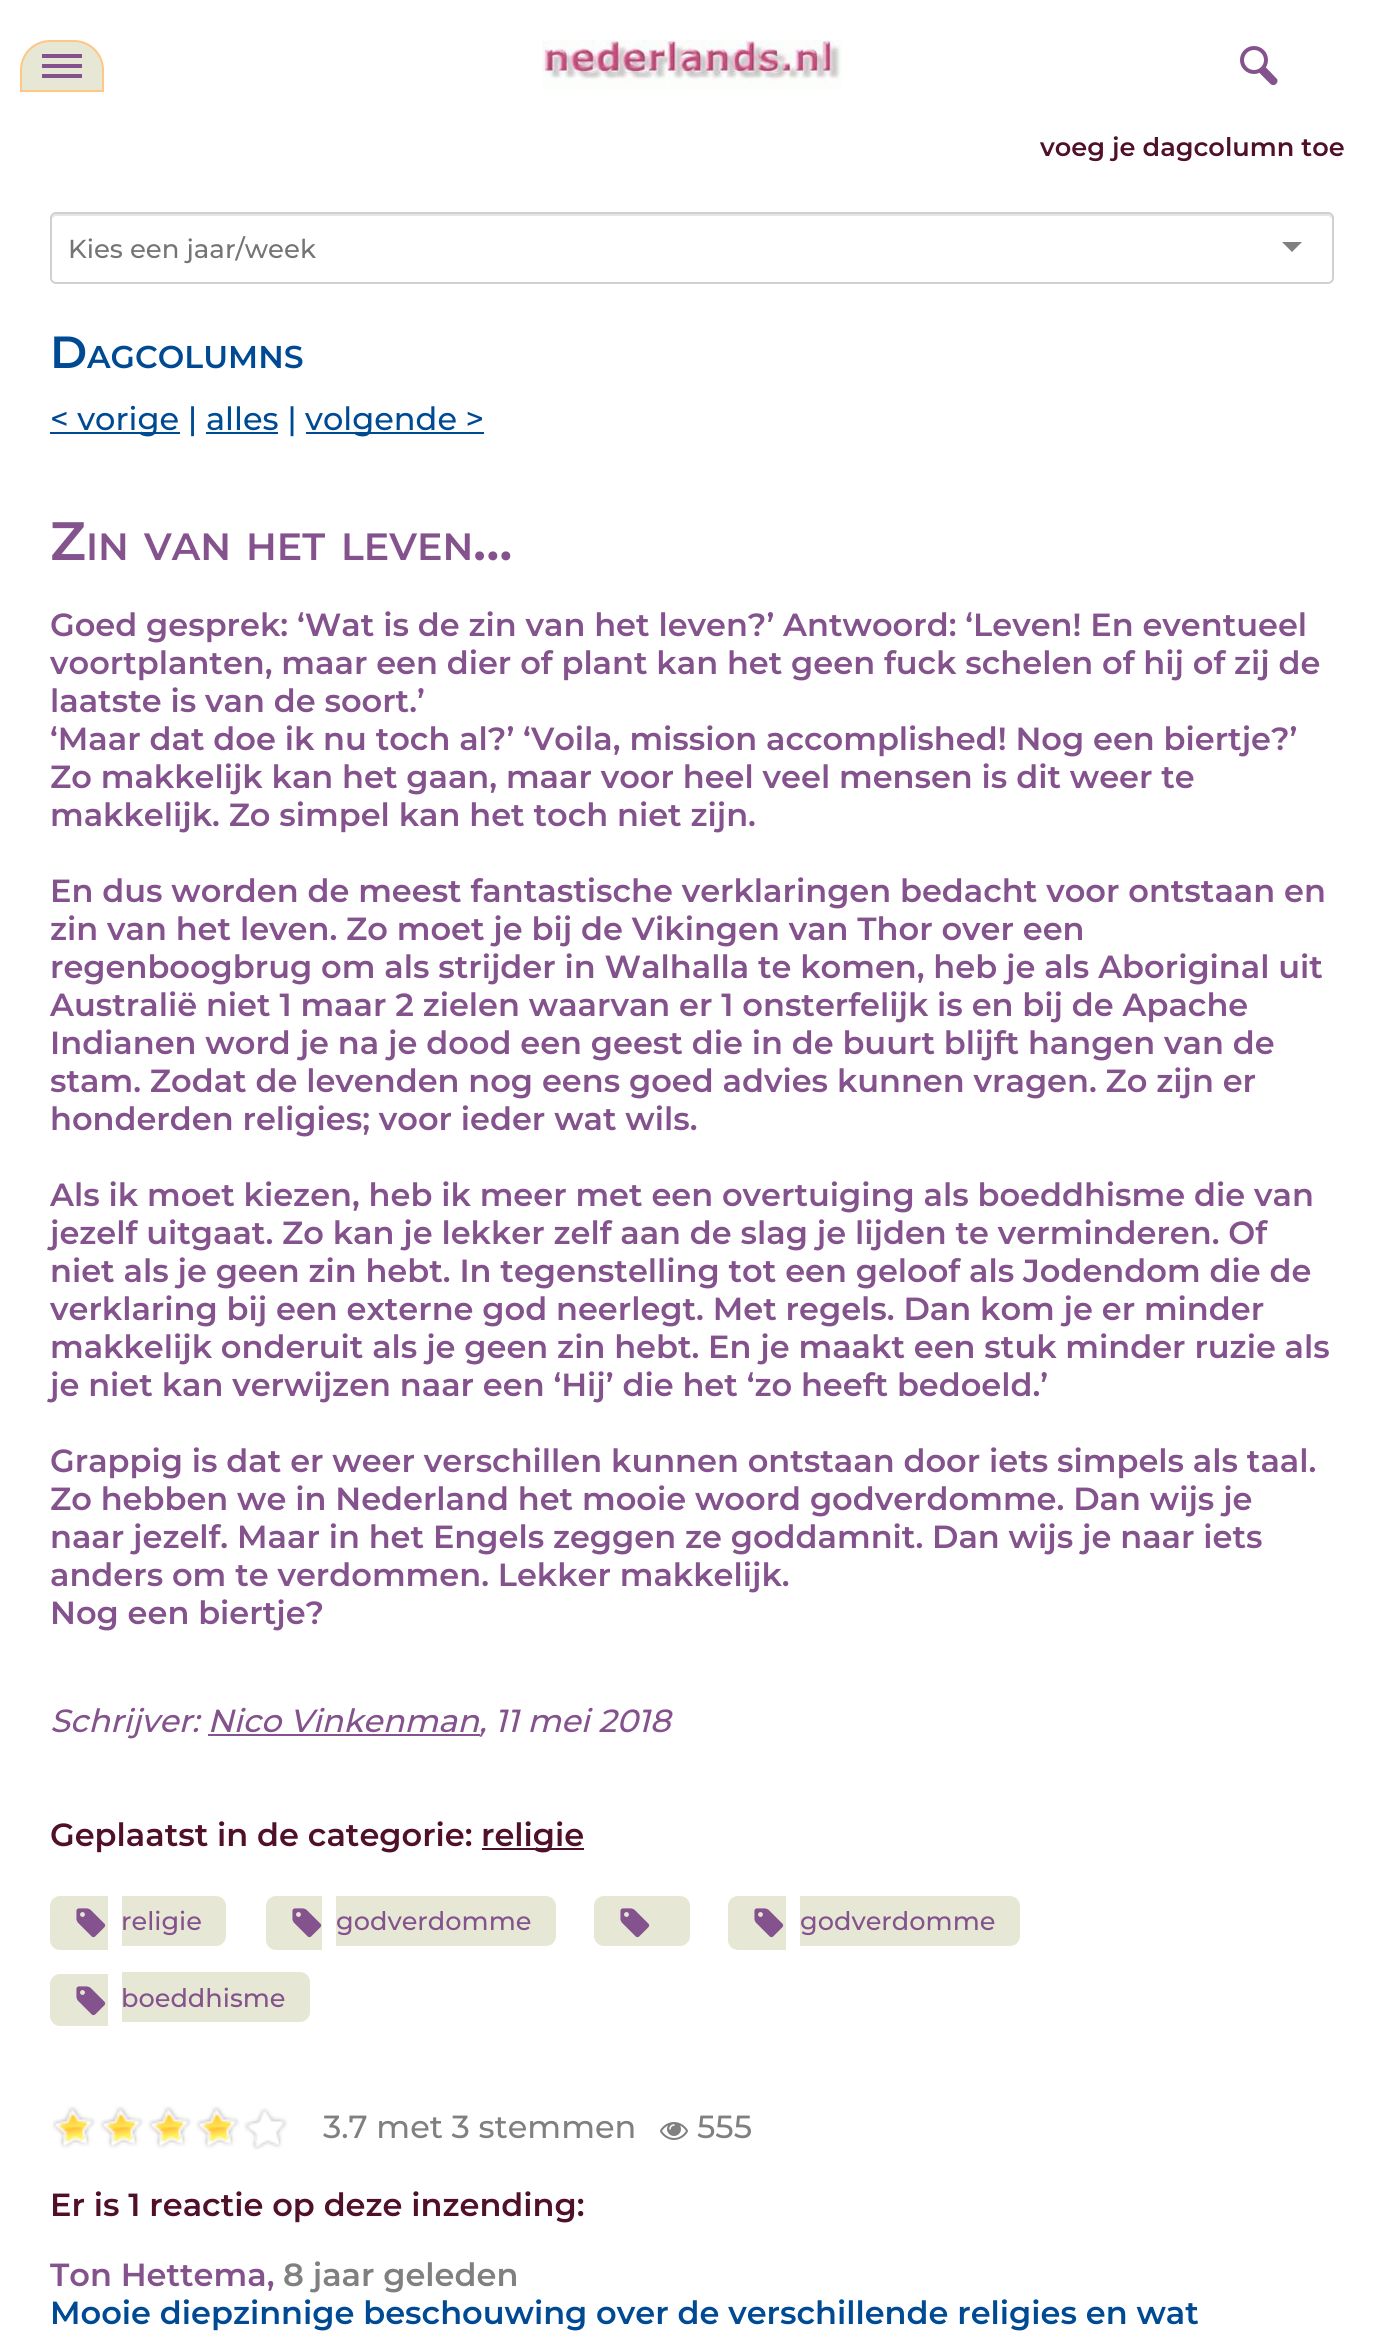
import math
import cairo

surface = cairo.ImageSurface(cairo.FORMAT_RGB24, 1383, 2333)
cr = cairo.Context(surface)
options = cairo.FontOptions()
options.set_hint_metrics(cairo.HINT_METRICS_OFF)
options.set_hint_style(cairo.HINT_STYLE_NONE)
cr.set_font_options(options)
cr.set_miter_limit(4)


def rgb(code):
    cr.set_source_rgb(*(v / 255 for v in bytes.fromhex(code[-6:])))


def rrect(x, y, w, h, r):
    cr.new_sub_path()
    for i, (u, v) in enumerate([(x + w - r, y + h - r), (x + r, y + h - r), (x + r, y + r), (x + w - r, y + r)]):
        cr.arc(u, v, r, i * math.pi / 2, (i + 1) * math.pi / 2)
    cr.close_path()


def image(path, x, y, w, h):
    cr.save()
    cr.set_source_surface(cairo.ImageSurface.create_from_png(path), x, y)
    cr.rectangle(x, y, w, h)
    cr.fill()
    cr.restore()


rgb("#ffffff")
cr.paint()
rgb("#e7e7d6")
cr.new_path()
cr.move_to(50, 41)
cr.line_to(74, 41)
cr.curve_to(90, 41, 103, 54, 103, 70)
cr.line_to(103, 91)
cr.line_to(21, 91)
cr.line_to(21, 70)
cr.curve_to(21, 54, 34, 41, 50, 41)
cr.close_path()
cr.fill_preserve()
rgb("#ffc684")
cr.stroke()
for x, y, w, h, color in [
    (42, 54, 40, 4, "#84528c"),
    (42, 64, 40, 4, "#84528c"),
    (42, 74, 40, 4, "#84528c"),
]:
    rgb(color)
    cr.rectangle(x, y, w, h)
    cr.fill()
image("img/1.png", 542, 40, 300, 50)
cr.arc(1254, 60, 12, 0, 2 * math.pi)
cr.set_line_width(4)
cr.stroke()
cr.new_path()
cr.move_to(1266.5, 68)
cr.line_to(1276, 78)
cr.curve_to(1278, 79.5, 1278, 82, 1276, 84)
cr.curve_to(1274.5, 85.5, 1272, 85.5, 1270.5, 84)
cr.line_to(1260.5, 74)
cr.curve_to(1259, 72.5, 1259, 70, 1260.5, 68)
cr.curve_to(1262, 66.5, 1265, 66.5, 1266.5, 68)
cr.close_path()
cr.fill()
rgb("#e6e6e6")
cr.new_path()
cr.move_to(56, 216)
cr.line_to(1328, 216)
cr.curve_to(1330, 216, 1332, 218, 1332, 220)
cr.curve_to(1332, 217, 1332, 214, 1328, 214)
cr.line_to(56, 214)
cr.curve_to(52, 214, 52, 217, 52, 220)
cr.curve_to(52, 218, 54, 216, 56, 216)
cr.close_path()
cr.fill()
rrect(51, 213, 1282, 70, 5)
rgb("#d0d0d0")
cr.set_line_width(2)
cr.stroke()
rgb("#808080")
cr.new_path()
cr.move_to(1282, 242)
cr.line_to(1302, 242)
cr.line_to(1292, 252)
cr.close_path()
cr.fill()
for x, y, w, h, color in [
    (50, 432, 130, 2, "#004a94"),
    (306, 432, 178, 2, "#004a94"),
    (206, 432, 72, 2, "#004a94"),
    (208, 1734, 272, 2, "#84528c"),
    (482, 1848, 102, 2, "#50102a"),
]:
    rgb(color)
    cr.rectangle(x, y, w, h)
    cr.fill()
rgb("#e7e7d6")
cr.new_path()
cr.move_to(60, 1896)
cr.line_to(108, 1896)
cr.line_to(108, 1950)
cr.line_to(60, 1950)
cr.curve_to(54.5, 1950, 50, 1945.5, 50, 1940)
cr.line_to(50, 1906)
cr.curve_to(50, 1900.5, 54.5, 1896, 60, 1896)
cr.close_path()
cr.fill()
image("img/2.png", 76, 1908, 30, 30)
cr.new_path()
cr.move_to(276, 1896)
cr.line_to(322, 1896)
cr.line_to(322, 1950)
cr.line_to(276, 1950)
cr.curve_to(270.5, 1950, 266, 1945.5, 266, 1940)
cr.line_to(266, 1906)
cr.curve_to(266, 1900.5, 270.5, 1896, 276, 1896)
cr.close_path()
cr.fill()
image("img/2.png", 292, 1908, 30, 30)
rrect(594, 1896, 96, 50, 10)
cr.fill()
cr.new_path()
cr.move_to(122, 1896)
cr.line_to(216, 1896)
cr.curve_to(221.5, 1896, 226, 1900.5, 226, 1906)
cr.line_to(226, 1936)
cr.curve_to(226, 1941.5, 221.5, 1946, 216, 1946)
cr.line_to(122, 1946)
cr.close_path()
cr.fill()
cr.new_path()
cr.move_to(336, 1896)
cr.line_to(546, 1896)
cr.curve_to(551.5, 1896, 556, 1900.5, 556, 1906)
cr.line_to(556, 1936)
cr.curve_to(556, 1941.5, 551.5, 1946, 546, 1946)
cr.line_to(336, 1946)
cr.close_path()
cr.fill()
image("img/2.png", 620, 1908, 30, 30)
cr.new_path()
cr.move_to(738, 1896)
cr.line_to(786, 1896)
cr.line_to(786, 1950)
cr.line_to(738, 1950)
cr.curve_to(732.5, 1950, 728, 1945.5, 728, 1940)
cr.line_to(728, 1906)
cr.curve_to(728, 1900.5, 732.5, 1896, 738, 1896)
cr.close_path()
cr.fill()
image("img/2.png", 754, 1908, 30, 30)
cr.new_path()
cr.move_to(800, 1896)
cr.line_to(1010, 1896)
cr.curve_to(1015.5, 1896, 1020, 1900.5, 1020, 1906)
cr.line_to(1020, 1936)
cr.curve_to(1020, 1941.5, 1015.5, 1946, 1010, 1946)
cr.line_to(800, 1946)
cr.close_path()
cr.fill()
cr.new_path()
cr.move_to(60, 1974)
cr.line_to(108, 1974)
cr.line_to(108, 2026)
cr.line_to(60, 2026)
cr.curve_to(54.5, 2026, 50, 2021.5, 50, 2016)
cr.line_to(50, 1984)
cr.curve_to(50, 1978.5, 54.5, 1974, 60, 1974)
cr.close_path()
cr.fill()
image("img/2.png", 76, 1986, 30, 30)
cr.new_path()
cr.move_to(122, 1972)
cr.line_to(300, 1972)
cr.curve_to(305.5, 1972, 310, 1976.5, 310, 1982)
cr.line_to(310, 2012)
cr.curve_to(310, 2017.5, 305.5, 2022, 300, 2022)
cr.line_to(122, 2022)
cr.close_path()
cr.fill()
image("img/3.png", 52, 2108, 236, 42)
image("img/4.png", 53, 2106, 185, 44)
image("img/5.png", 660, 2122, 28, 18)
cr.select_font_face("Montserrat Thin")
cr.set_font_size(25.6)
rgb("#50102a")
cr.move_to(1040, 156)
cr.show_text("voeg je dagcolumn toe")
cr.select_font_face("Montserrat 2 Thin")
cr.set_font_size(26)
rgb("#757575")
cr.move_to(68, 258)
cr.show_text("Kies een jaar/week")
cr.select_font_face("Montserrat Thin")
cr.set_font_size(45)
rgb("#004a94")
cr.move_to(50, 368)
cr.show_text("D")
cr.set_font_size(31.5)
cr.move_to(87, 368)
cr.show_text("AGCOLUMNS")
cr.select_font_face("Montserrat 2 Thin")
cr.set_font_size(32)
cr.move_to(50, 430)
cr.show_text("< vorige | alles |")
cr.move_to(305, 430)
cr.show_text("volgende >")
cr.select_font_face("Montserrat Thin")
cr.set_font_size(54)
rgb("#84528c")
cr.move_to(50, 560)
cr.show_text("Z")
cr.set_font_size(38)
for x, y, s in [
    (86, 560, "IN"),
    (144, 560, "VAN"),
    (246, 560, "HET"),
    (341, 560, "LEVEN"),
]:
    cr.move_to(x, y)
    cr.show_text(s)
cr.set_font_size(54)
cr.move_to(473, 560)
cr.show_text("...")
cr.set_font_size(32)
for x, y, s in [
    (50, 636, "Goed gesprek: ‘Wat is de zin van het leven?’ Antwoord: ‘Leven! En eventueel"),
    (50, 674, "voortplanten, maar een dier of plant kan het geen fuck schelen of hij of zij de"),
    (50, 712, "laatste is van de soort.’"),
    (50, 750, "‘Maar dat doe ik nu toch al?’ ‘Voila, mission accomplished! Nog een biertje?’"),
    (50, 788, "Zo makkelijk kan het gaan, maar voor heel veel mensen is dit weer te"),
    (50, 826, "makkelijk. Zo simpel kan het toch niet zijn."),
    (50, 902, "En dus worden de meest fantastische verklaringen bedacht voor ontstaan en"),
    (50, 940, "zin van het leven. Zo moet je bij de Vikingen van Thor over een"),
    (50, 978, "regenboogbrug om als strijder in Walhalla te komen, heb je als Aboriginal uit"),
    (50, 1016, "Australië niet 1 maar 2 zielen waarvan er 1 onsterfelijk is en bij de Apache"),
    (50, 1054, "Indianen word je na je dood een geest die in de buurt blijft hangen van de"),
    (50, 1092, "stam. Zodat de levenden nog eens goed advies kunnen vragen. Zo zijn er"),
    (50, 1130, "honderden religies; voor ieder wat wils."),
    (50, 1206, "Als ik moet kiezen, heb ik meer met een overtuiging als boeddhisme die van"),
    (50, 1244, "jezelf uitgaat. Zo kan je lekker zelf aan de slag je lijden te verminderen. Of"),
    (50, 1282, "niet als je geen zin hebt. In tegenstelling tot een geloof als Jodendom die de"),
    (50, 1320, "verklaring bij een externe god neerlegt. Met regels. Dan kom je er minder"),
    (50, 1358, "makkelijk onderuit als je geen zin hebt. En je maakt een stuk minder ruzie als"),
    (50, 1396, "je niet kan verwijzen naar een ‘Hij’ die het ‘zo heeft bedoeld.’"),
    (50, 1472, "Grappig is dat er weer verschillen kunnen ontstaan door iets simpels als taal."),
    (50, 1510, "Zo hebben we in Nederland het mooie woord godverdomme. Dan wijs je"),
    (50, 1548, "naar jezelf. Maar in het Engels zeggen ze goddamnit. Dan wijs je naar iets"),
    (50, 1586, "anders om te verdommen. Lekker makkelijk."),
    (50, 1624, "Nog een biertje?"),
]:
    cr.move_to(x, y)
    cr.show_text(s)
cr.select_font_face("Montserrat Thin", cairo.FONT_SLANT_ITALIC)
cr.move_to(50, 1732)
cr.show_text("Schrijver: Nico Vinkenman")
cr.move_to(479, 1732)
cr.show_text(", 11 mei 2018")
cr.select_font_face("Montserrat Thin")
rgb("#50102a")
cr.move_to(50, 1846)
cr.show_text("Geplaatst in de categorie:")
cr.move_to(481, 1846)
cr.show_text("religie")
cr.select_font_face("Montserrat 2 Thin")
cr.set_font_size(25.6)
rgb("#84528c")
for x, y, s in [
    (121, 1930, "religie"),
    (336, 1930, "godverdomme"),
    (800, 1930, "godverdomme"),
    (121, 2007, "boeddhisme"),
]:
    cr.move_to(x, y)
    cr.show_text(s)
cr.set_font_size(32)
rgb("#808080")
cr.move_to(323, 2138)
cr.show_text("3.7 met 3 stemmen")
cr.move_to(697, 2138)
cr.show_text("555")
cr.select_font_face("Montserrat Thin")
rgb("#50102a")
cr.move_to(50, 2216)
cr.show_text("Er is 1 reactie op deze inzending:")
rgb("#84528c")
cr.move_to(50, 2286)
cr.show_text("Ton Hettema,")
rgb("#808080")
cr.move_to(283, 2286)
cr.show_text("8 jaar geleden")
rgb("#004a94")
cr.move_to(50, 2324)
cr.show_text("Mooie diepzinnige beschouwing over de verschillende religies en wat")
surface.write_to_png("page.png")
